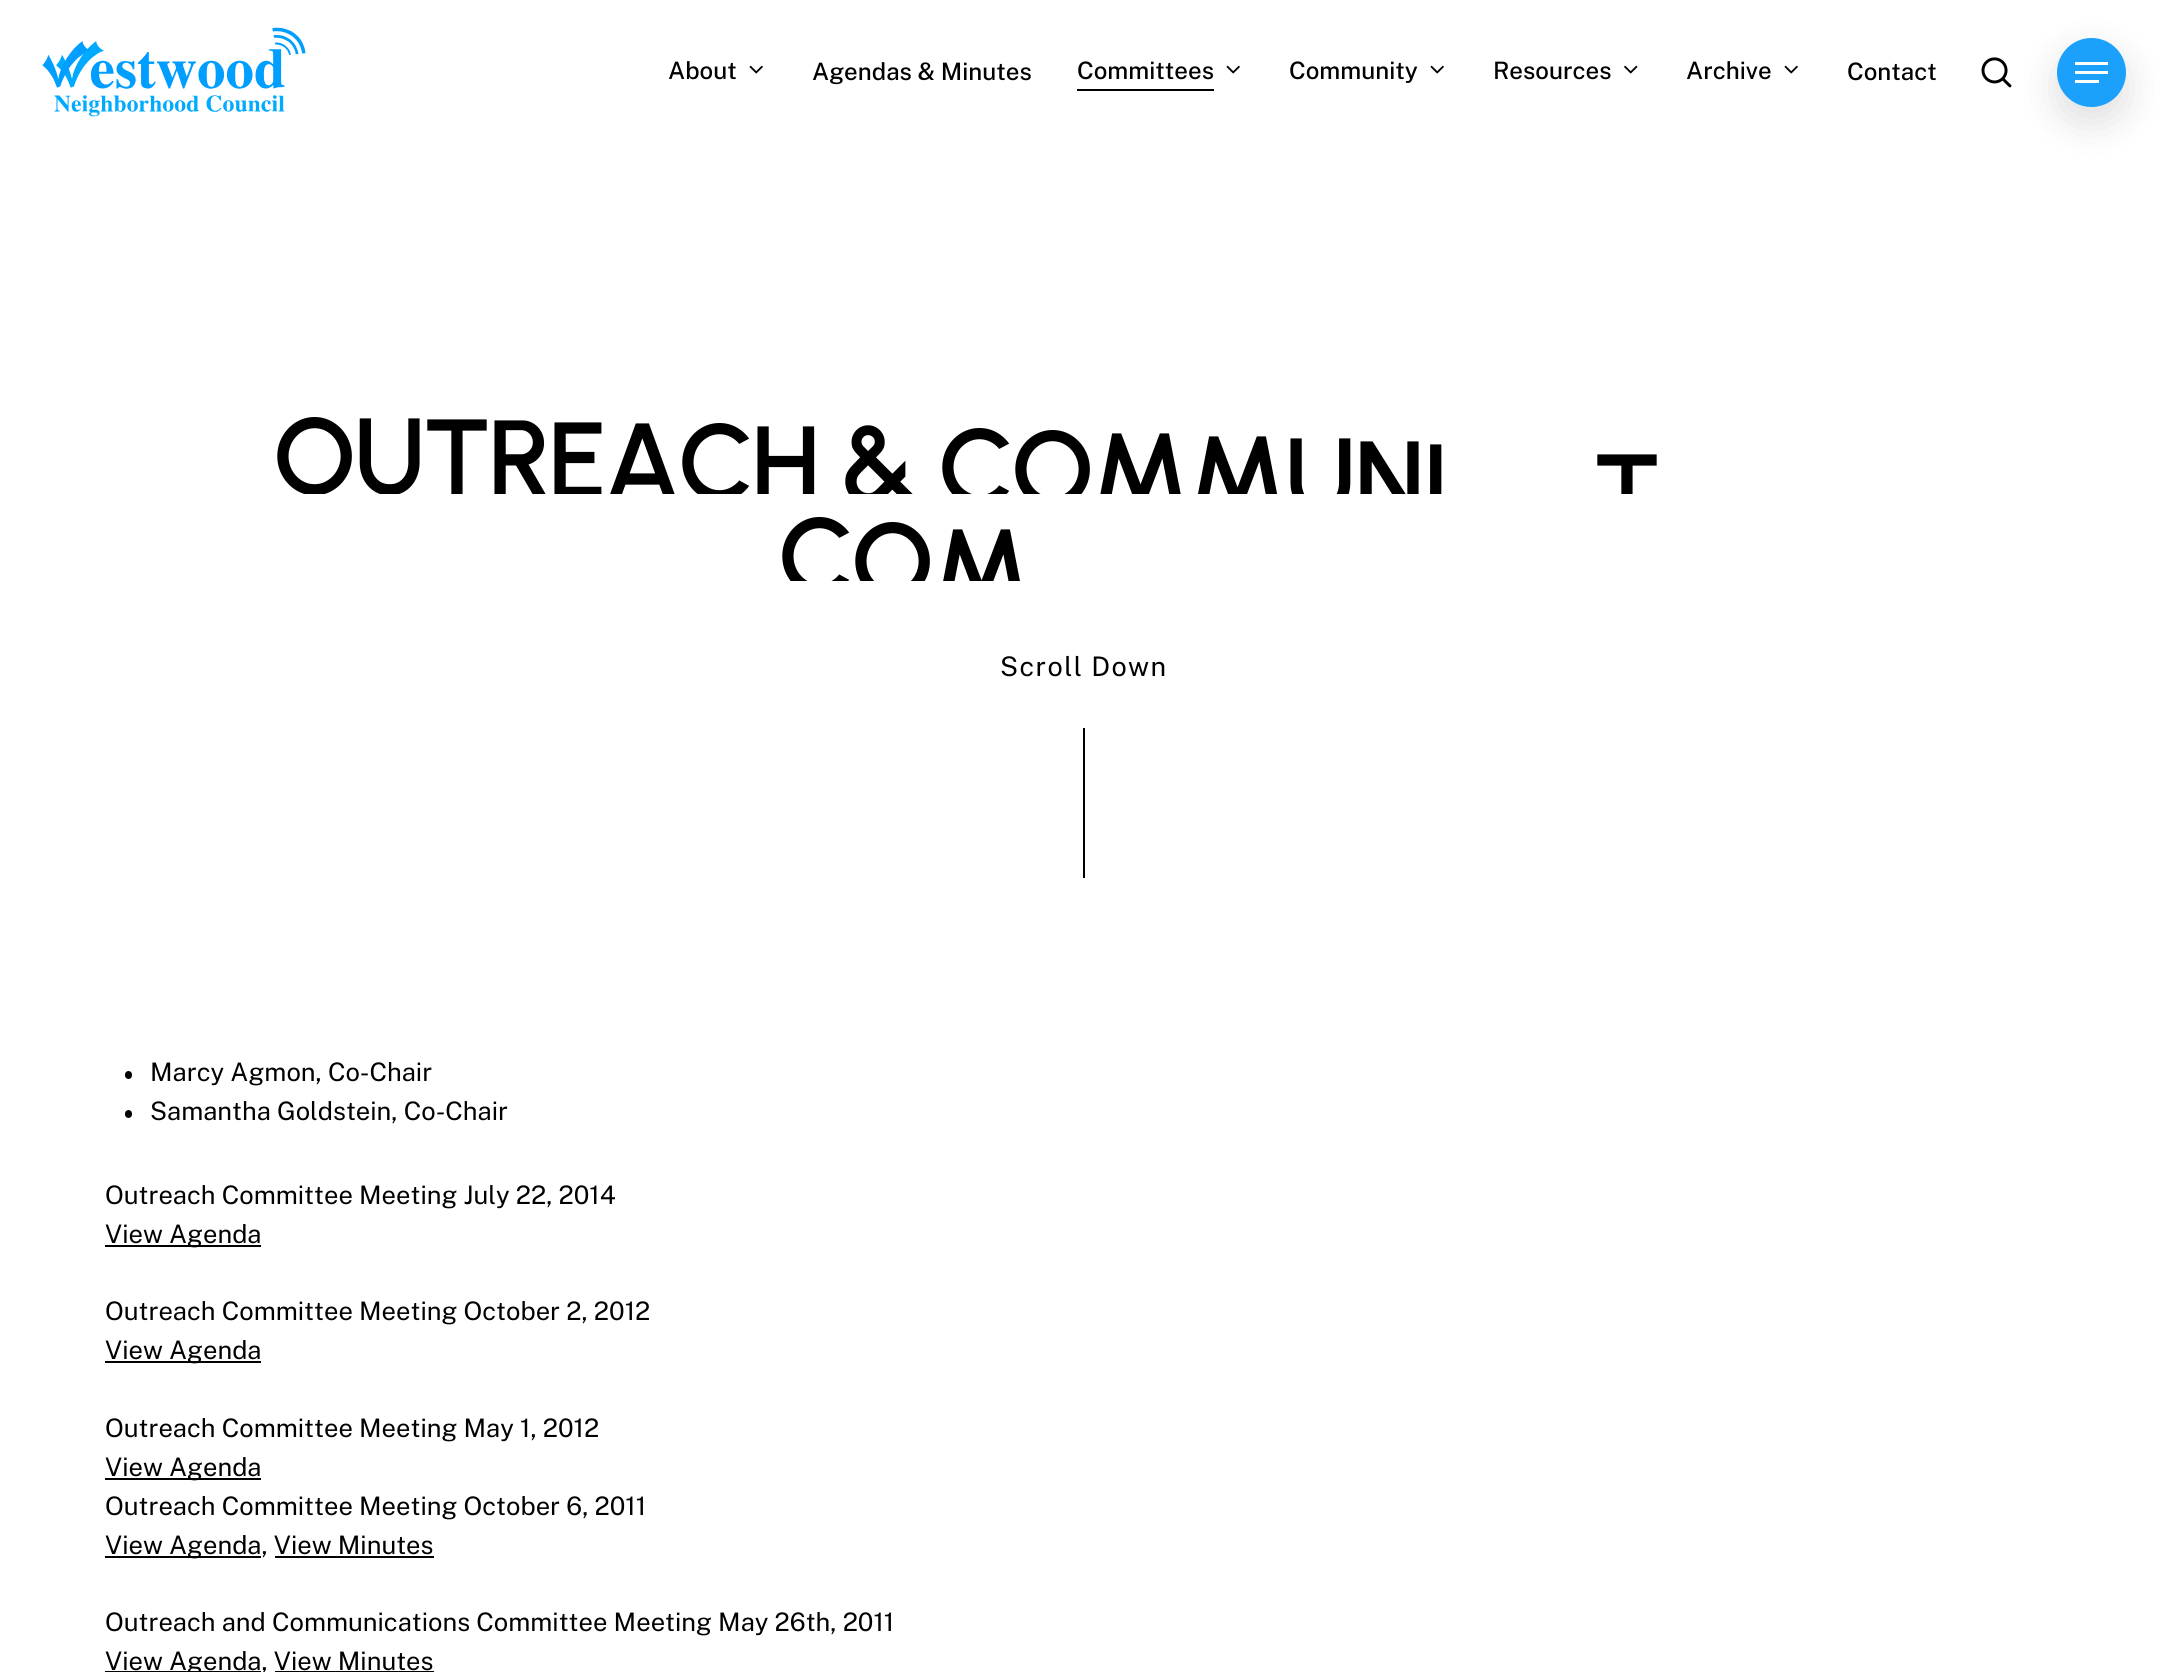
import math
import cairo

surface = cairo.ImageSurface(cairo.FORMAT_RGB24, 2167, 1672)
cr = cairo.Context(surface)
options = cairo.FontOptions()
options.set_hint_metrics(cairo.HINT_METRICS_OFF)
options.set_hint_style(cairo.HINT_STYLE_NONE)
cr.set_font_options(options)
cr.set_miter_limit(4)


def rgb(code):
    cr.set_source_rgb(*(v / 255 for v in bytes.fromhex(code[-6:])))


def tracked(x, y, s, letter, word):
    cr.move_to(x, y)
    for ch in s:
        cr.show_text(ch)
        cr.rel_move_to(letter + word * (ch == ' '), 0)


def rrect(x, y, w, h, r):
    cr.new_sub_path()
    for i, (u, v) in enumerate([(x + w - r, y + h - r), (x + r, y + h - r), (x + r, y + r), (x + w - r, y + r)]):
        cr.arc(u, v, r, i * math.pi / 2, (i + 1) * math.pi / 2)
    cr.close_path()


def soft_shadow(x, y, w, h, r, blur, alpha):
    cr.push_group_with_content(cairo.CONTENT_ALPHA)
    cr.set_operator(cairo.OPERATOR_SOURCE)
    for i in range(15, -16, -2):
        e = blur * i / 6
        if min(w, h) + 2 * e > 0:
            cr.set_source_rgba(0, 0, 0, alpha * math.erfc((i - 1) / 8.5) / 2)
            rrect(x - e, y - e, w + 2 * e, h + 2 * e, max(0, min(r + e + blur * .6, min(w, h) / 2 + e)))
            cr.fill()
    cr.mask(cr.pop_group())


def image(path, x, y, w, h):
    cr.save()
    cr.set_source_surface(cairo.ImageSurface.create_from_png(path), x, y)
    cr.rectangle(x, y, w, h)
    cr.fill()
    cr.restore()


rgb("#ffffff")
cr.paint()
image("img/1.png", 42, 27, 264, 90)
image("img/2.png", 749, 65, 14, 9)
rgb("#000000")
cr.rectangle(1077, 89, 137, 2)
cr.fill()
image("img/2.png", 1226, 65, 14, 9)
image("img/2.png", 1430, 65, 14, 9)
image("img/3.png", 1624, 65, 14, 9)
image("img/2.png", 1784, 65, 14, 9)
image("img/4.png", 1981, 57, 31, 31)
rgb("#000000")
soft_shadow(2057, 53, 69, 69, 34.5, 19, 0.13)
rgb("#1ba0fc")
cr.arc(2091.5, 72.5, 34.5, 0, 2 * math.pi)
cr.fill()
for x, y, w, h, color in [
    (2075, 62, 33, 3, "#ffffff"),
    (2075, 80, 24, 3, "#ffffff"),
    (2075, 71, 33, 3, "#ffffff"),
    (1083, 728, 2, 150, "#000000"),
]:
    rgb(color)
    cr.rectangle(x, y, w, h)
    cr.fill()
rrect(125, 1071, 7, 8, 3.5)
cr.fill()
rrect(125, 1110, 7, 8, 3.5)
cr.fill()
for x, y, w, h, color in [
    (105, 1245, 156, 2, "#000000"),
    (105, 1361, 156, 2, "#000000"),
    (105, 1478, 156, 2, "#000000"),
    (105, 1556, 156, 2, "#000000"),
    (275, 1556, 159, 2, "#000000"),
    (105, 1671, 156, 1, "#000000"),
    (275, 1671, 159, 1, "#000000"),
]:
    rgb(color)
    cr.rectangle(x, y, w, h)
    cr.fill()
cr.select_font_face("Public Sans Medium")
cr.set_font_size(24)
for x, y, s in [
    (668, 79, "About"),
    (812, 80, "Agendas & Minutes"),
    (1077, 79, "Committees"),
    (1289, 79, "Community"),
    (1493, 79, "Resources"),
    (1686, 79, "Archive"),
    (1847, 80, "Contact"),
]:
    cr.move_to(x, y)
    cr.show_text(s)
cr.save()
cr.rectangle(267, 407, 557, 87)
cr.clip()
cr.select_font_face("Urbanist SemiBold")
cr.set_font_size(108)
for x, y, s in [
    (273, 494, "OU"),
    (423, 495, "T"),
    (488, 496, "R"),
    (548, 498, "E"),
    (604, 499, "A"),
    (678, 500, "C"),
    (751, 502, "H"),
]:
    tracked(x, y, s, -3, 0)
cr.restore()
cr.save()
cr.rectangle(836, 407, 85, 87)
cr.clip()
cr.select_font_face("Urbanist SemiBold")
cr.set_font_size(108)
tracked(841, 503, "&", -3, 0)
cr.restore()
cr.save()
cr.rectangle(933, 407, 968, 87)
cr.clip()
cr.select_font_face("Urbanist SemiBold")
cr.set_font_size(108)
for x, y, s in [
    (938, 505, "C"),
    (1011, 507, "O"),
    (1091, 509, "M"),
    (1188, 512, "M"),
    (1284, 514, "U"),
    (1354, 517, "N"),
    (1422, 520, "I"),
    (1593, 530, "T"),
]:
    tracked(x, y, s, -3, 0)
cr.restore()
cr.save()
cr.rectangle(773, 494, 622, 87)
cr.clip()
cr.select_font_face("Urbanist SemiBold")
cr.set_font_size(108)
for x, y, s in [
    (778, 594, "C"),
    (851, 599, "O"),
    (932, 605, "M"),
]:
    tracked(x, y, s, -3, 0)
cr.restore()
cr.select_font_face("Public Sans")
cr.set_font_size(27)
tracked(1000, 676, "Scroll Down", 1.4, 0)
cr.set_font_size(25.5)
for x, y, s in [
    (150, 1081, "Marcy Agmon, Co-Chair"),
    (150, 1120, "Samantha Goldstein, Co-Chair"),
    (105, 1204, "Outreach Committee Meeting July 22, 2014"),
    (105, 1243, "View Agenda"),
    (105, 1320, "Outreach Committee Meeting October 2, 2012"),
    (105, 1359, "View Agenda"),
    (105, 1437, "Outreach Committee Meeting May 1, 2012"),
    (105, 1476, "View Agenda"),
    (105, 1515, "Outreach Committee Meeting October 6, 2011"),
    (105, 1554, "View Agenda, View Minutes"),
    (105, 1631, "Outreach and Communications Committee Meeting May 26th, 2011"),
    (105, 1670, "View Agenda, View Minutes"),
]:
    cr.move_to(x, y)
    cr.show_text(s)
surface.write_to_png("page.png")
